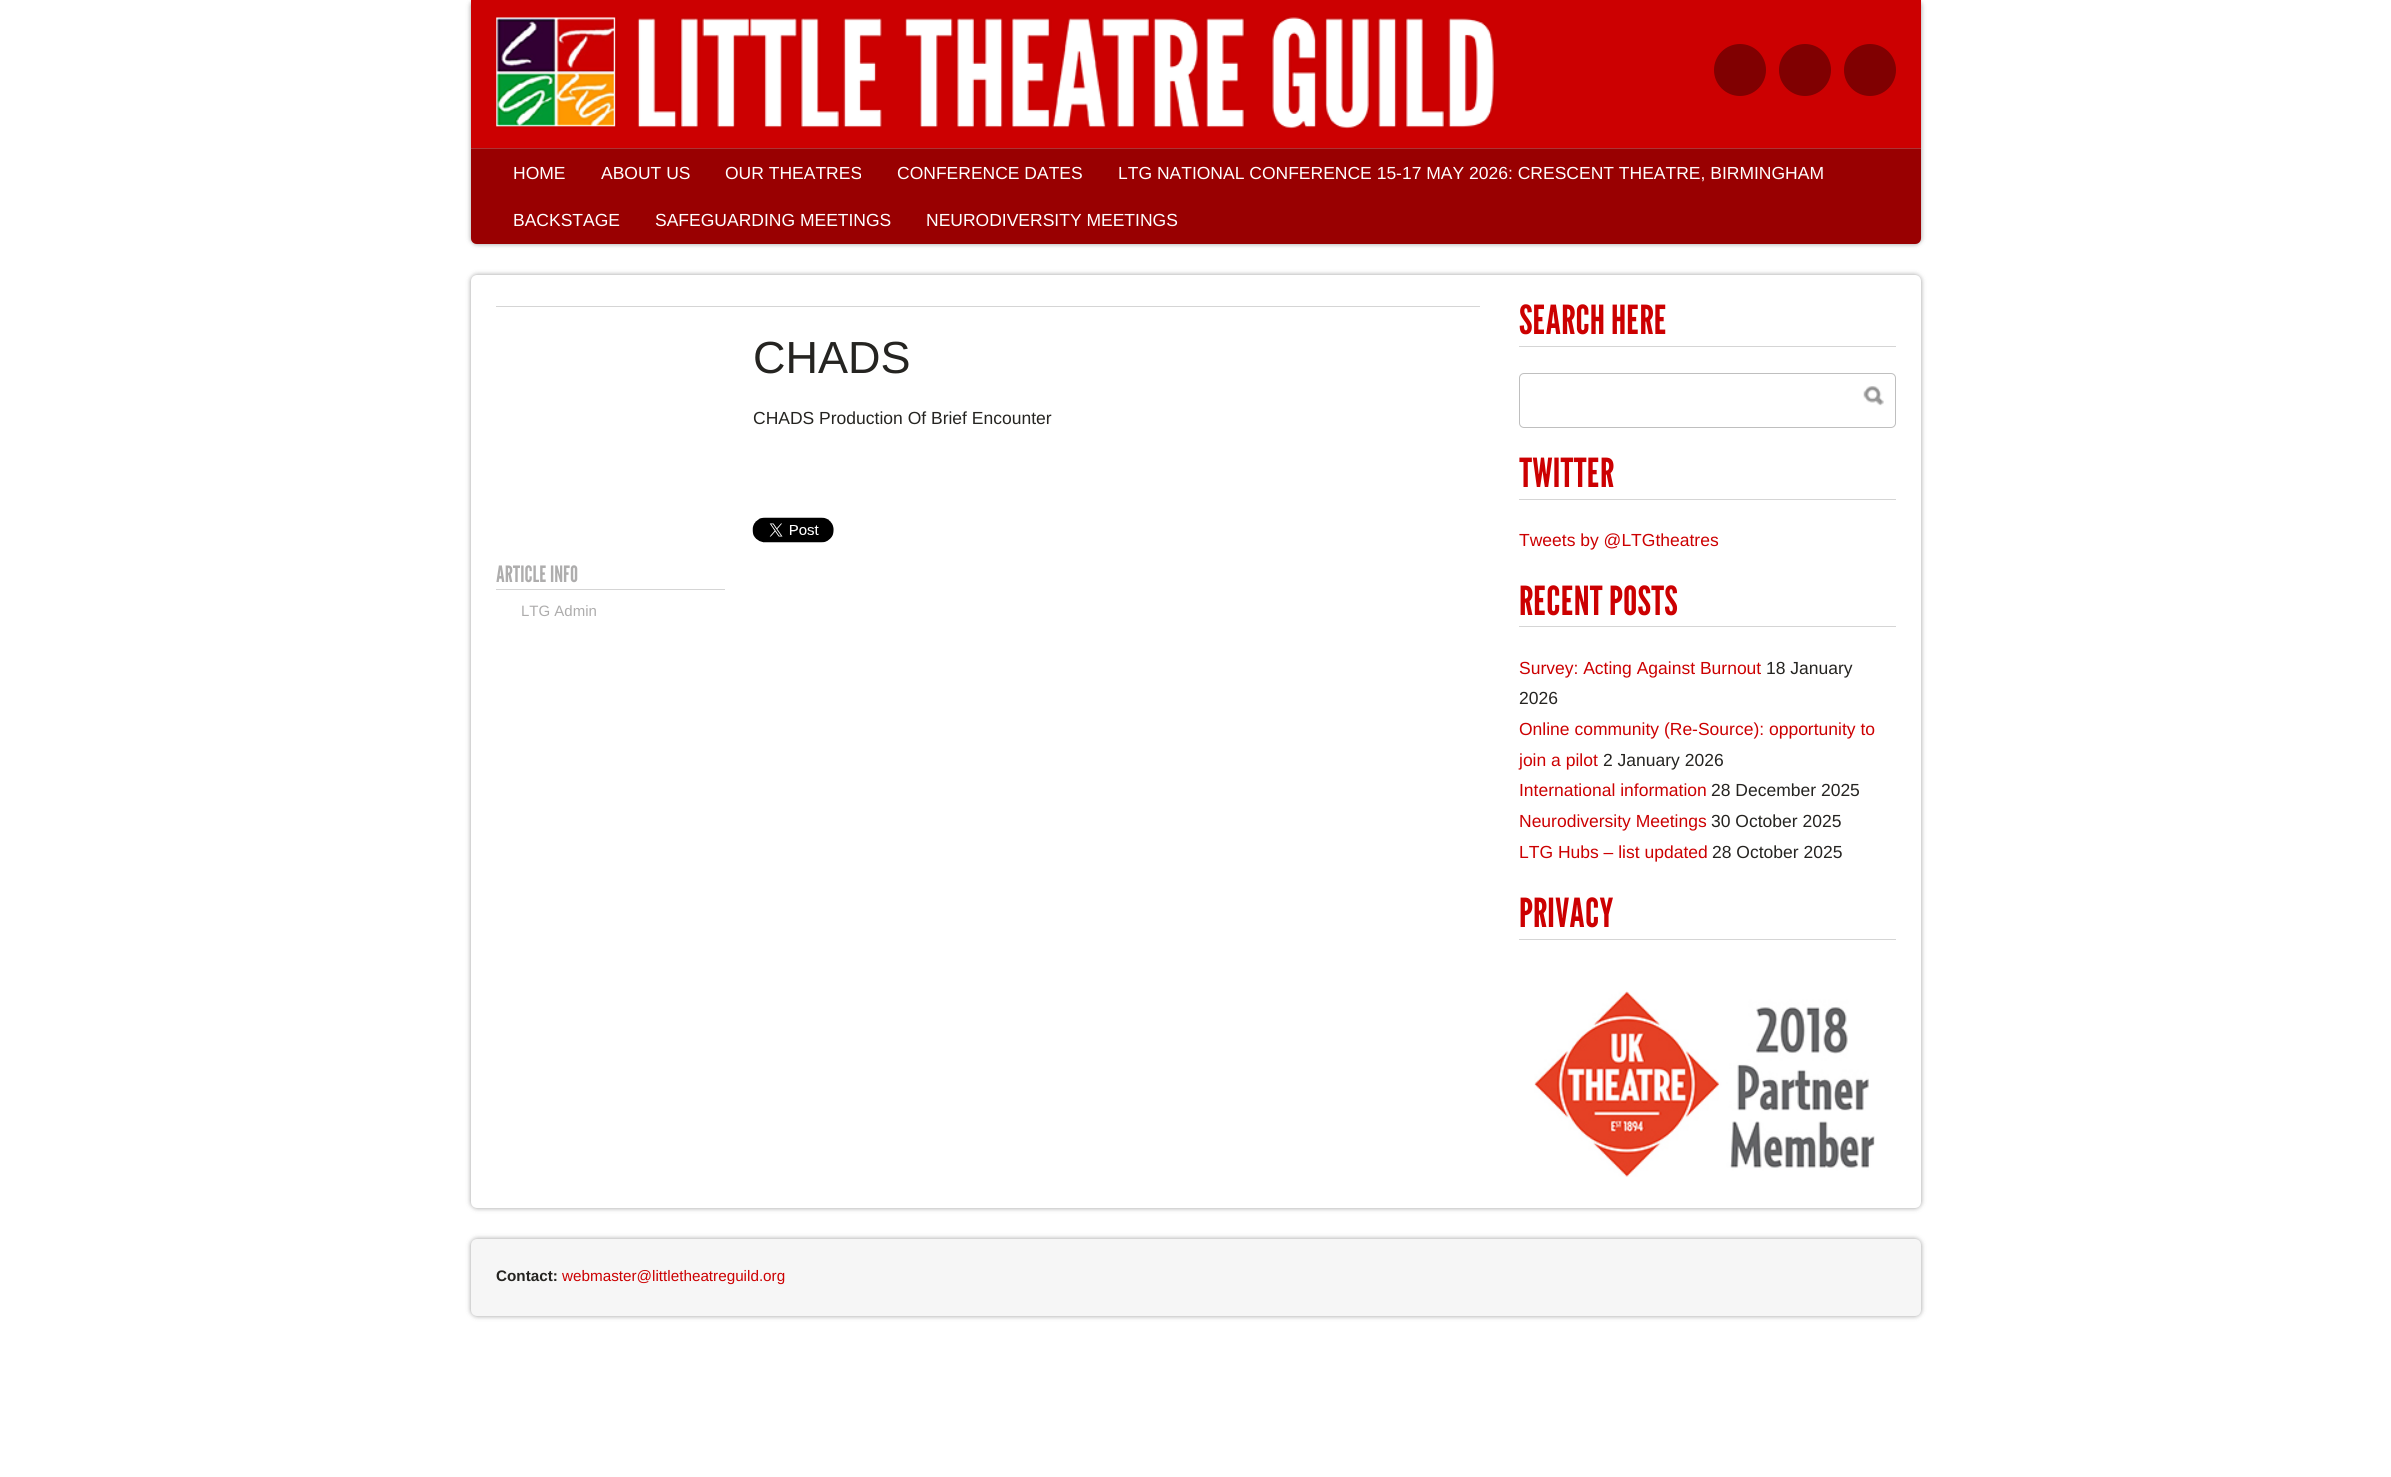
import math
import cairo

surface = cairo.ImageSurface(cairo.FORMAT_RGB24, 2391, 1477)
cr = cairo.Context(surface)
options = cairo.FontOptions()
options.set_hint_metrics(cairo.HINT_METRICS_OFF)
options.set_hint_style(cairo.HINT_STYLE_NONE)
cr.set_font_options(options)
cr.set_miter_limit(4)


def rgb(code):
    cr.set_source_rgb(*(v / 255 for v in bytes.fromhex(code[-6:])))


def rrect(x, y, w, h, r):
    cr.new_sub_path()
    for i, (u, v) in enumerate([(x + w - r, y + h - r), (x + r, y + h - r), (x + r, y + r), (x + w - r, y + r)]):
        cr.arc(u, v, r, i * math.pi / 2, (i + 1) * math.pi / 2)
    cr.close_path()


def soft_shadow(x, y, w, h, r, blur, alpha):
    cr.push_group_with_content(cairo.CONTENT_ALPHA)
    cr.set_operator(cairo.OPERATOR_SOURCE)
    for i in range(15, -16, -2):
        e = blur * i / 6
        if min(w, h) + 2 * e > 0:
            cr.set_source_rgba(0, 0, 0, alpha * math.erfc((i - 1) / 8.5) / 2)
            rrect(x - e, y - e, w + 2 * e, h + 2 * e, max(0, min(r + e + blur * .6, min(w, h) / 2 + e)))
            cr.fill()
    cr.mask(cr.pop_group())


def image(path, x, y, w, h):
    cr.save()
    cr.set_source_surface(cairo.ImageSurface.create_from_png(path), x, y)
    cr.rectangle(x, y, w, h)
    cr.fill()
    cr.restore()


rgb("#ffffff")
cr.paint()
rgb("#000000")
soft_shadow(471, 0, 1450, 244, 6, 2.5, 0.4)
rgb("#cc0001")
cr.new_path()
cr.move_to(471, 0)
cr.line_to(1921, 0)
cr.line_to(1921, 238)
cr.curve_to(1921, 241.5, 1918.5, 244, 1915, 244)
cr.line_to(477, 244)
cr.curve_to(473.5, 244, 471, 241.5, 471, 238)
cr.close_path()
cr.fill()
image("img/1.png", 496, 16, 999, 113)
rgb("#800001")
cr.arc(1740, 70, 26, 0, 2 * math.pi)
cr.fill()
cr.arc(1805, 70, 26, 0, 2 * math.pi)
cr.fill()
cr.arc(1870, 70, 26, 0, 2 * math.pi)
cr.fill()
cr.set_source_rgba(0, 0, 0, 0.25)
cr.new_path()
cr.move_to(471, 148)
cr.line_to(1921, 148)
cr.line_to(1921, 238)
cr.curve_to(1921, 241.5, 1918.5, 244, 1915, 244)
cr.line_to(477, 244)
cr.curve_to(473.5, 244, 471, 241.5, 471, 238)
cr.close_path()
cr.fill()
rgb("#ad3334")
cr.rectangle(471, 148, 1450, 1)
cr.fill()
rgb("#000000")
soft_shadow(471, 275, 1450, 933, 6, 2.5, 0.4)
rgb("#ffffff")
rrect(471, 275, 1450, 933, 6)
cr.fill()
rgb("#d5d5d5")
cr.rectangle(496, 306, 984, 1)
cr.fill()
image("img/2.png", 752, 517, 82, 26)
cr.rectangle(496, 589, 229, 1)
cr.fill()
cr.rectangle(1519, 346, 377, 1)
cr.fill()
rrect(1519.5, 373.5, 376, 54, 4.5)
rgb("#bfbfbf")
cr.set_line_width(1)
cr.stroke()
image("img/3.png", 1863, 386, 21, 20)
for x, y, w, h, color in [
    (1519, 499, 377, 1, "#d5d5d5"),
    (1519, 626, 377, 1, "#d5d5d5"),
    (1519, 939, 377, 1, "#d5d5d5"),
]:
    rgb(color)
    cr.rectangle(x, y, w, h)
    cr.fill()
image("img/4.png", 1534, 990, 341, 187)
rgb("#000000")
soft_shadow(471, 1239, 1450, 77, 6, 2.5, 0.4)
rgb("#f6f6f6")
rrect(471, 1239, 1450, 77, 6)
cr.fill()
cr.select_font_face("Liberation Sans")
cr.set_font_size(17.5)
rgb("#ffffff")
for x, y, s in [
    (513, 179, "HOME"),
    (601, 179, "ABOUT US"),
    (725, 179, "OUR THEATRES"),
    (897, 179, "CONFERENCE DATES"),
    (1118, 179, "LTG NATIONAL CONFERENCE 15-17 MAY 2026: CRESCENT THEATRE, BIRMINGHAM"),
    (513, 226, "BACKSTAGE"),
    (655, 226, "SAFEGUARDING MEETINGS"),
    (926, 226, "NEURODIVERSITY MEETINGS"),
]:
    cr.move_to(x, y)
    cr.show_text(s)
cr.set_font_size(45)
rgb("#252421")
cr.move_to(753, 373)
cr.show_text("CHADS")
cr.set_font_size(17.5)
cr.move_to(753, 424)
cr.show_text("CHADS Production Of Brief Encounter")
cr.select_font_face("League Gothic")
cr.set_font_size(22.5)
rgb("#aeadad")
cr.move_to(496, 582)
cr.show_text("ARTICLE INFO")
cr.select_font_face("Liberation Sans")
cr.set_font_size(15)
cr.move_to(521, 616)
cr.show_text("LTG Admin")
cr.select_font_face("League Gothic")
cr.set_font_size(40)
rgb("#cc0001")
cr.move_to(1519, 334)
cr.show_text("SEARCH HERE")
cr.move_to(1519, 487)
cr.show_text("TWITTER")
cr.select_font_face("Liberation Sans")
cr.set_font_size(17.5)
cr.move_to(1519, 546)
cr.show_text("Tweets by @LTGtheatres")
cr.select_font_face("League Gothic")
cr.set_font_size(40)
cr.move_to(1519, 615)
cr.show_text("RECENT POSTS")
cr.select_font_face("Liberation Sans")
cr.set_font_size(17.5)
cr.move_to(1519, 674)
cr.show_text("Survey: Acting Against Burnout")
rgb("#252421")
cr.move_to(1766, 674)
cr.show_text("18 January")
cr.move_to(1519, 704)
cr.show_text("2026")
rgb("#cc0001")
cr.move_to(1519, 735)
cr.show_text("Online community (Re-Source): opportunity to")
cr.move_to(1519, 766)
cr.show_text("join a pilot")
rgb("#252421")
cr.move_to(1603, 766)
cr.show_text("2 January 2026")
rgb("#cc0001")
cr.move_to(1519, 796)
cr.show_text("International information")
rgb("#252421")
cr.move_to(1711, 796)
cr.show_text("28 December 2025")
rgb("#cc0001")
cr.move_to(1519, 827)
cr.show_text("Neurodiversity Meetings")
rgb("#252421")
cr.move_to(1711, 827)
cr.show_text("30 October 2025")
rgb("#cc0001")
cr.move_to(1519, 858)
cr.show_text("LTG Hubs – list updated")
rgb("#252421")
cr.move_to(1712, 858)
cr.show_text("28 October 2025")
cr.select_font_face("League Gothic")
cr.set_font_size(40)
rgb("#cc0001")
cr.move_to(1519, 927)
cr.show_text("PRIVACY")
cr.select_font_face("Liberation Sans", cairo.FONT_SLANT_NORMAL, cairo.FONT_WEIGHT_BOLD)
cr.set_font_size(15.25)
rgb("#252421")
cr.move_to(496, 1281)
cr.show_text("Contact:")
cr.select_font_face("Liberation Sans")
rgb("#cc0001")
cr.move_to(562, 1281)
cr.show_text("webmaster@littletheatreguild.org")
surface.write_to_png("page.png")
